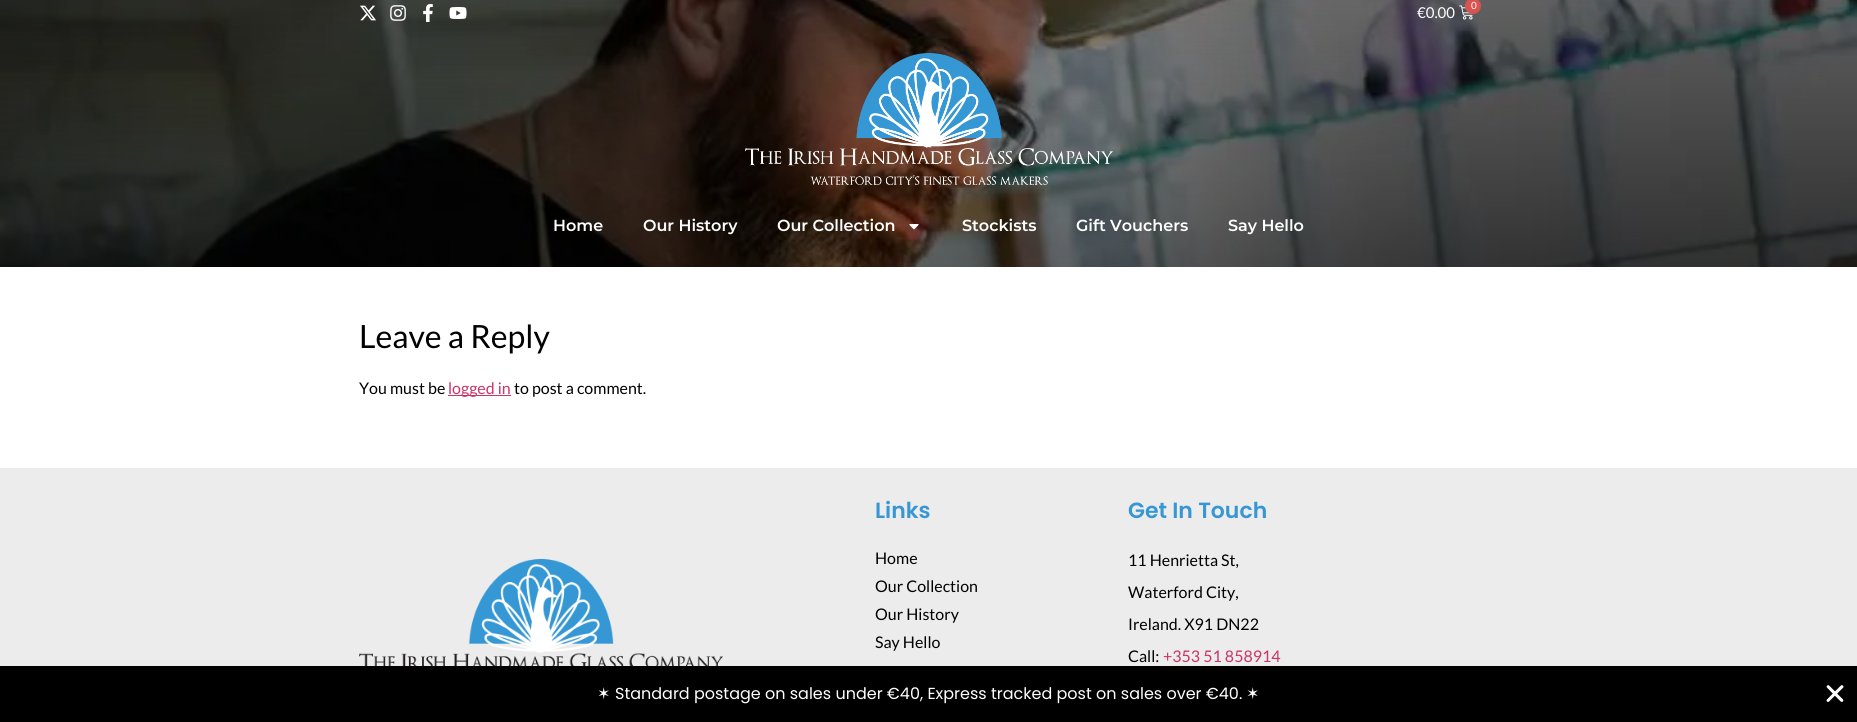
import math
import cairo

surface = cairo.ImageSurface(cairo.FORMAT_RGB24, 1857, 722)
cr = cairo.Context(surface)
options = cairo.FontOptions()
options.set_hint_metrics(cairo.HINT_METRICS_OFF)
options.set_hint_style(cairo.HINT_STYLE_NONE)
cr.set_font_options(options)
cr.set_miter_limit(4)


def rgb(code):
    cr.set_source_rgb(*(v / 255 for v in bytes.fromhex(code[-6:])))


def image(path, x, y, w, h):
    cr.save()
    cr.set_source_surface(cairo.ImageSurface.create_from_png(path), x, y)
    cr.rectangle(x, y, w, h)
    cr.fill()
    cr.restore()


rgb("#ffffff")
cr.paint()
image("img/1.png", 0, 0, 1857, 267)
image("img/2.png", 360, 5, 16, 16)
image("img/3.png", 390, 5, 16, 16)
image("img/4.png", 423, 4, 10, 18)
image("img/5.png", 449, 7, 18, 12)
image("img/6.png", 1459, 5, 14, 15)
rgb("#d9534f")
cr.arc(1473, 6, 8, 0, 2 * math.pi)
cr.fill()
image("img/7.png", 745, 53, 368, 132)
image("img/8.png", 909, 224, 10, 6)
rgb("#cc3366")
cr.rectangle(448, 395, 63, 1)
cr.fill()
rgb("#ececec")
cr.rectangle(0, 468, 1857, 198)
cr.fill()
image("img/9.png", 359, 559, 364, 107)
rgb("#000000")
cr.rectangle(0, 666, 1857, 56)
cr.fill()
image("img/10.png", 1826, 685, 18, 17)
cr.select_font_face("Lato")
cr.set_font_size(10)
rgb("#ffffff")
cr.move_to(1471, 9)
cr.show_text("0")
cr.set_font_size(15)
cr.move_to(1417, 18)
cr.show_text("€0.00")
cr.select_font_face("Montserrat SemiBold")
cr.set_font_size(16)
for x, y, s in [
    (553, 231, "Home"),
    (643, 231, "Our History"),
    (777, 231, "Our Collection"),
    (962, 231, "Stockists"),
    (1076, 231, "Gift Vouchers"),
    (1228, 231, "Say Hello"),
]:
    cr.move_to(x, y)
    cr.show_text(s)
cr.select_font_face("Lato")
cr.set_font_size(32)
rgb("#000000")
cr.move_to(359, 348)
cr.show_text("Leave a Reply")
cr.set_font_size(16)
cr.move_to(359, 394)
cr.show_text("You must be")
rgb("#cc3366")
cr.move_to(448, 394)
cr.show_text("logged in")
rgb("#000000")
cr.move_to(514, 394)
cr.show_text("to post a comment.")
cr.select_font_face("Poppins SemiBold")
cr.set_font_size(22)
rgb("#3697d3")
cr.move_to(875, 518)
cr.show_text("Links")
cr.select_font_face("Lato")
cr.set_font_size(16)
rgb("#000000")
for x, y, s in [
    (875, 564, "Home"),
    (875, 592, "Our Collection"),
    (875, 620, "Our History"),
    (875, 648, "Say Hello"),
]:
    cr.move_to(x, y)
    cr.show_text(s)
cr.select_font_face("Poppins SemiBold")
cr.set_font_size(22)
rgb("#3697d3")
cr.move_to(1128, 518)
cr.show_text("Get In Touch")
cr.select_font_face("Lato")
cr.set_font_size(16)
rgb("#000000")
for x, y, s in [
    (1128, 566, "11 Henrietta St,"),
    (1128, 598, "Waterford City,"),
    (1128, 630, "Ireland. X91 DN22"),
    (1128, 662, "Call:"),
]:
    cr.move_to(x, y)
    cr.show_text(s)
rgb("#cc3366")
cr.move_to(1163, 662)
cr.show_text("+353 51 858914")
cr.select_font_face("DejaVu Sans")
rgb("#ffffff")
cr.move_to(597, 699)
cr.show_text("✶")
cr.select_font_face("Poppins")
cr.move_to(615, 699)
cr.show_text("Standard postage on sales under €40, Express tracked post on sales over €40.")
cr.select_font_face("DejaVu Sans")
cr.move_to(1246, 699)
cr.show_text("✶")
surface.write_to_png("page.png")
